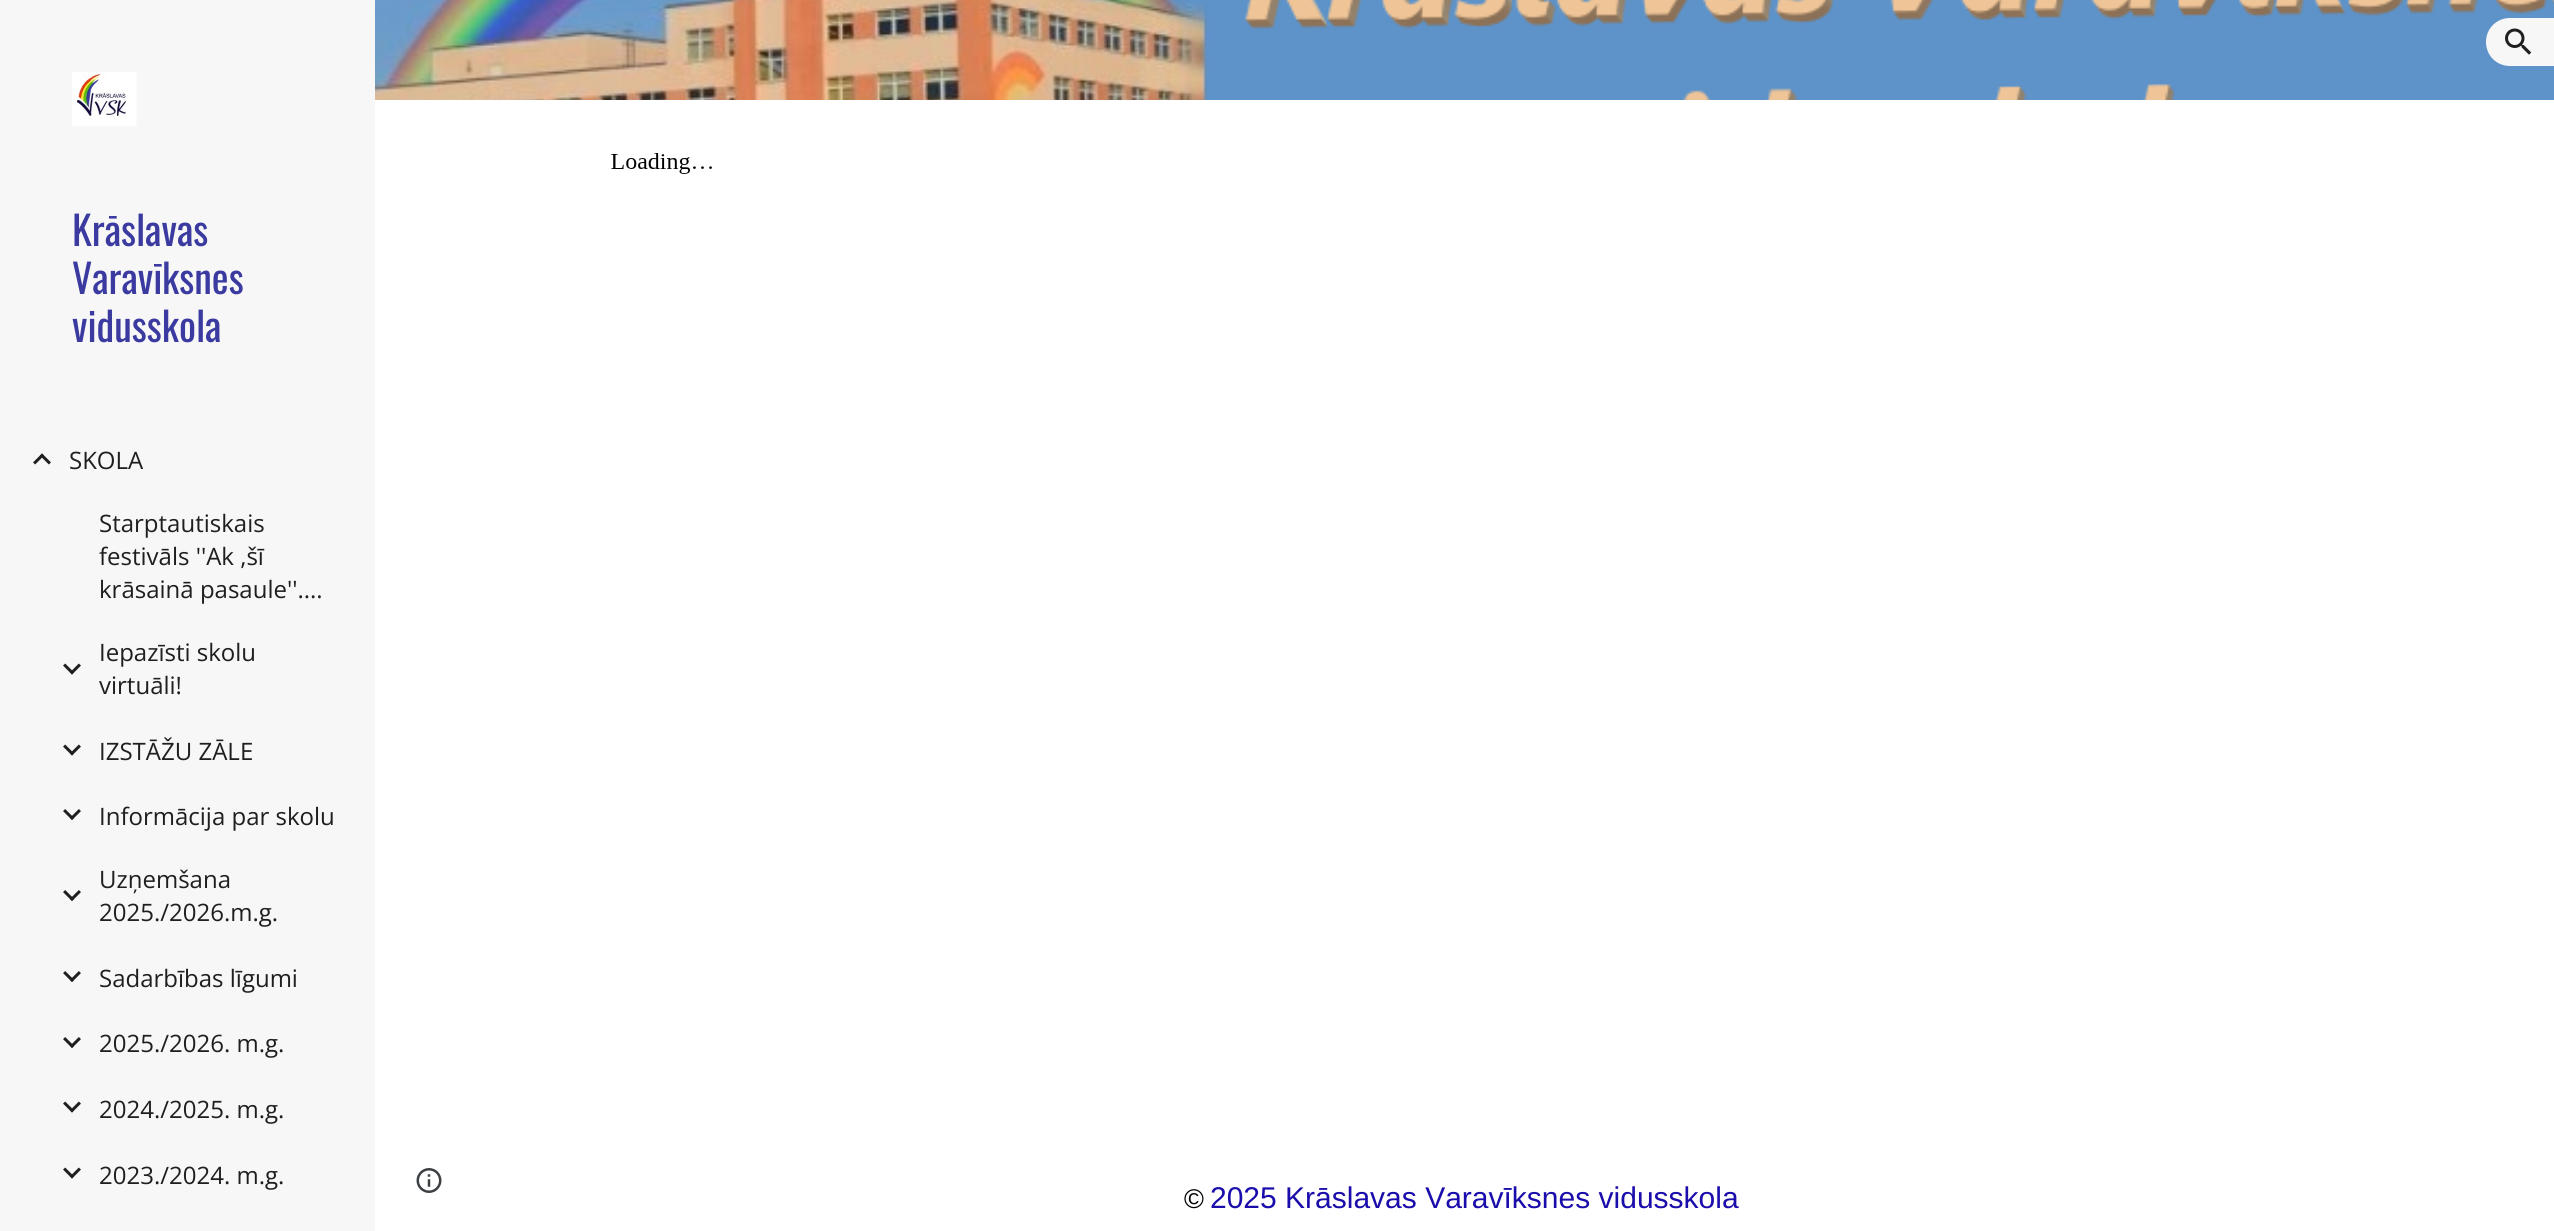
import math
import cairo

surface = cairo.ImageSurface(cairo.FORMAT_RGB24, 2554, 1231)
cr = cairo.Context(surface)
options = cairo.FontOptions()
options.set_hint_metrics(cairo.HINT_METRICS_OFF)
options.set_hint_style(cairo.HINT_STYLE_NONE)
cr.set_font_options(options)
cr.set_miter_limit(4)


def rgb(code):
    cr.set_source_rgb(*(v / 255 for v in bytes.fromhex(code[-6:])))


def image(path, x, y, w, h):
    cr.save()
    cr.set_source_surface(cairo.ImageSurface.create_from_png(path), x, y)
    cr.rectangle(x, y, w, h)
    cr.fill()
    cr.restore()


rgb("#ffffff")
cr.paint()
image("img/1.png", 375, 0, 2179, 100)
image("img/2.png", 611, 153, 101, 21)
rgb("#f7f7f7")
cr.new_path()
cr.move_to(2510, 18)
cr.line_to(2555, 18)
cr.line_to(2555, 66)
cr.line_to(2510, 66)
cr.curve_to(2496.5, 66, 2486, 55.5, 2486, 42)
cr.curve_to(2486, 28.5, 2496.5, 18, 2510, 18)
cr.close_path()
cr.fill()
image("img/3.png", 2505, 28, 27, 27)
cr.rectangle(0, 0, 375, 1231)
cr.fill()
image("img/4.png", 72, 72, 65, 54)
image("img/5.png", 33, 453, 18, 12)
image("img/6.png", 63, 663, 18, 12)
image("img/6.png", 63, 744, 18, 12)
image("img/7.png", 63, 809, 18, 11)
image("img/7.png", 63, 890, 18, 11)
image("img/7.png", 63, 971, 18, 11)
image("img/7.png", 63, 1037, 18, 11)
image("img/6.png", 63, 1101, 18, 12)
image("img/6.png", 63, 1167, 18, 12)
image("img/8.png", 416, 1168, 26, 25)
cr.select_font_face("Oswald")
cr.set_font_size(40)
rgb("#3a3aa0")
for x, y, s in [
    (72, 246, "Krāslavas"),
    (72, 294, "Varavīksnes"),
    (72, 342, "vidusskola"),
]:
    cr.move_to(x, y)
    cr.show_text(s)
cr.select_font_face("Open Sans")
cr.set_font_size(24)
rgb("#1f1f1f")
for x, y, s in [
    (69, 469, "SKOLA"),
    (99, 532, "Starptautiskais"),
    (99, 565, "festivāls ''Ak ,šī"),
    (99, 598, "krāsainā pasaule''...."),
    (99, 661, "Iepazīsti skolu"),
    (99, 694, "virtuāli!"),
    (99, 760, "IZSTĀŽU ZĀLE"),
    (99, 825, "Informācija par skolu"),
    (99, 888, "Uzņemšana"),
    (99, 921, "2025./2026.m.g."),
    (99, 987, "Sadarbības līgumi"),
    (99, 1052, "2025./2026. m.g."),
    (99, 1118, "2024./2025. m.g."),
    (99, 1184, "2023./2024. m.g."),
]:
    cr.move_to(x, y)
    cr.show_text(s)
cr.select_font_face("Liberation Sans")
cr.set_font_size(27)
rgb("#000000")
cr.move_to(1184, 1208)
cr.show_text("©")
cr.set_font_size(30)
rgb("#1a0dab")
cr.move_to(1210, 1208)
cr.show_text("2025 Krāslavas Varavīksnes vidusskola")
surface.write_to_png("page.png")
